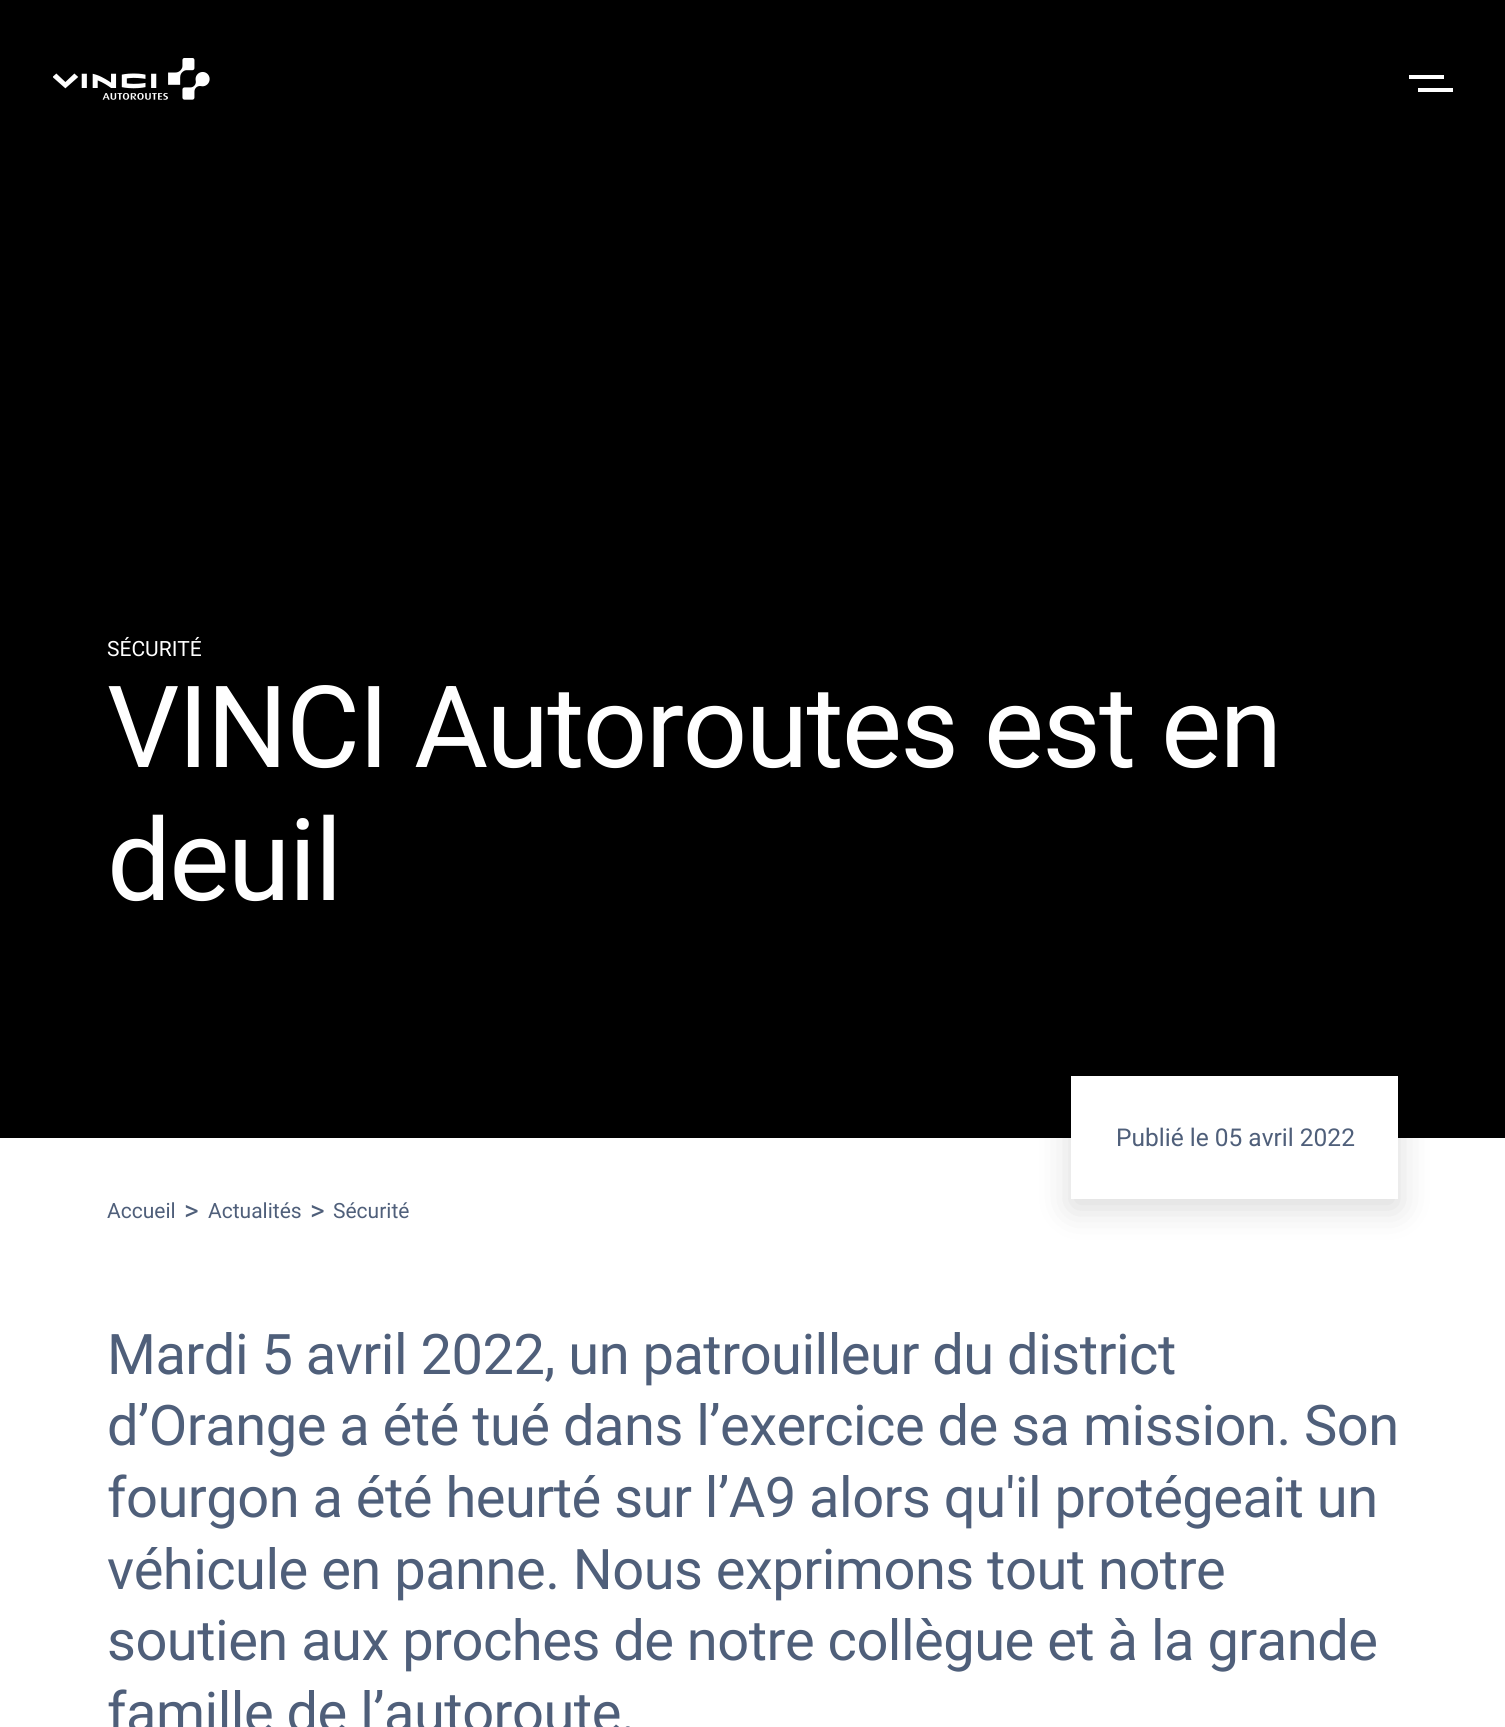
import math
import cairo

surface = cairo.ImageSurface(cairo.FORMAT_RGB24, 1505, 1727)
cr = cairo.Context(surface)
options = cairo.FontOptions()
options.set_hint_metrics(cairo.HINT_METRICS_OFF)
options.set_hint_style(cairo.HINT_STYLE_NONE)
cr.set_font_options(options)
cr.set_miter_limit(4)


def rgb(code):
    cr.set_source_rgb(*(v / 255 for v in bytes.fromhex(code[-6:])))


def tracked(x, y, s, letter, word):
    cr.move_to(x, y)
    for ch in s:
        cr.show_text(ch)
        cr.rel_move_to(letter + word * (ch == ' '), 0)


def rrect(x, y, w, h, r):
    cr.new_sub_path()
    for i, (u, v) in enumerate([(x + w - r, y + h - r), (x + r, y + h - r), (x + r, y + r), (x + w - r, y + r)]):
        cr.arc(u, v, r, i * math.pi / 2, (i + 1) * math.pi / 2)
    cr.close_path()


def soft_shadow(x, y, w, h, r, blur, alpha):
    cr.push_group_with_content(cairo.CONTENT_ALPHA)
    cr.set_operator(cairo.OPERATOR_SOURCE)
    for i in range(15, -16, -2):
        e = blur * i / 6
        if min(w, h) + 2 * e > 0:
            cr.set_source_rgba(0, 0, 0, alpha * math.erfc((i - 1) / 8.5) / 2)
            rrect(x - e, y - e, w + 2 * e, h + 2 * e, max(0, min(r + e + blur * .6, min(w, h) / 2 + e)))
            cr.fill()
    cr.mask(cr.pop_group())


def image(path, x, y, w, h):
    cr.save()
    cr.set_source_surface(cairo.ImageSurface.create_from_png(path), x, y)
    cr.rectangle(x, y, w, h)
    cr.fill()
    cr.restore()


rgb("#ffffff")
cr.paint()
rgb("#000000")
cr.rectangle(0, 0, 1505, 1138)
cr.fill()
image("img/1.png", 53, 58, 157, 42)
rgb("#ffffff")
cr.rectangle(1409, 75, 35, 4)
cr.fill()
cr.rectangle(1418, 88, 35, 4)
cr.fill()
rgb("#000000")
soft_shadow(1071, 1085, 327, 123, 0, 17.5, 0.15)
rgb("#ffffff")
cr.rectangle(1071, 1076, 327, 123)
cr.fill()
cr.select_font_face("Roboto")
cr.set_font_size(21)
cr.move_to(107, 656)
cr.show_text("SÉCURITÉ")
cr.set_font_size(113.75)
tracked(107, 767, "VINCI Autoroutes est en", -1.8, 0)
tracked(107, 900, "deuil", -1.8, 0)
cr.set_font_size(24.5)
rgb("#4f5f7a")
cr.move_to(1116, 1146)
cr.show_text("Publié le 05 avril 2022")
cr.set_font_size(21)
cr.move_to(107, 1218)
cr.show_text("Accueil")
cr.set_font_size(28)
cr.move_to(184, 1220)
cr.show_text(">")
cr.set_font_size(21)
cr.move_to(208, 1218)
cr.show_text("Actualités")
cr.set_font_size(28)
cr.move_to(310, 1220)
cr.show_text(">")
cr.set_font_size(21)
cr.move_to(333, 1218)
cr.show_text("Sécurité")
cr.set_font_size(56)
for x, y, s in [
    (107, 1374, "Mardi 5 avril 2022, un patrouilleur du district"),
    (107, 1445, "d’Orange a été tué dans l’exercice de sa mission. Son"),
    (107, 1517, "fourgon a été heurté sur l’A9 alors qu'il protégeait un"),
    (107, 1589, "véhicule en panne. Nous exprimons tout notre"),
    (107, 1660, "soutien aux proches de notre collègue et à la grande"),
    (107, 1732, "famille de l’autoroute."),
]:
    tracked(x, y, s, -0.5, 0)
surface.write_to_png("page.png")
